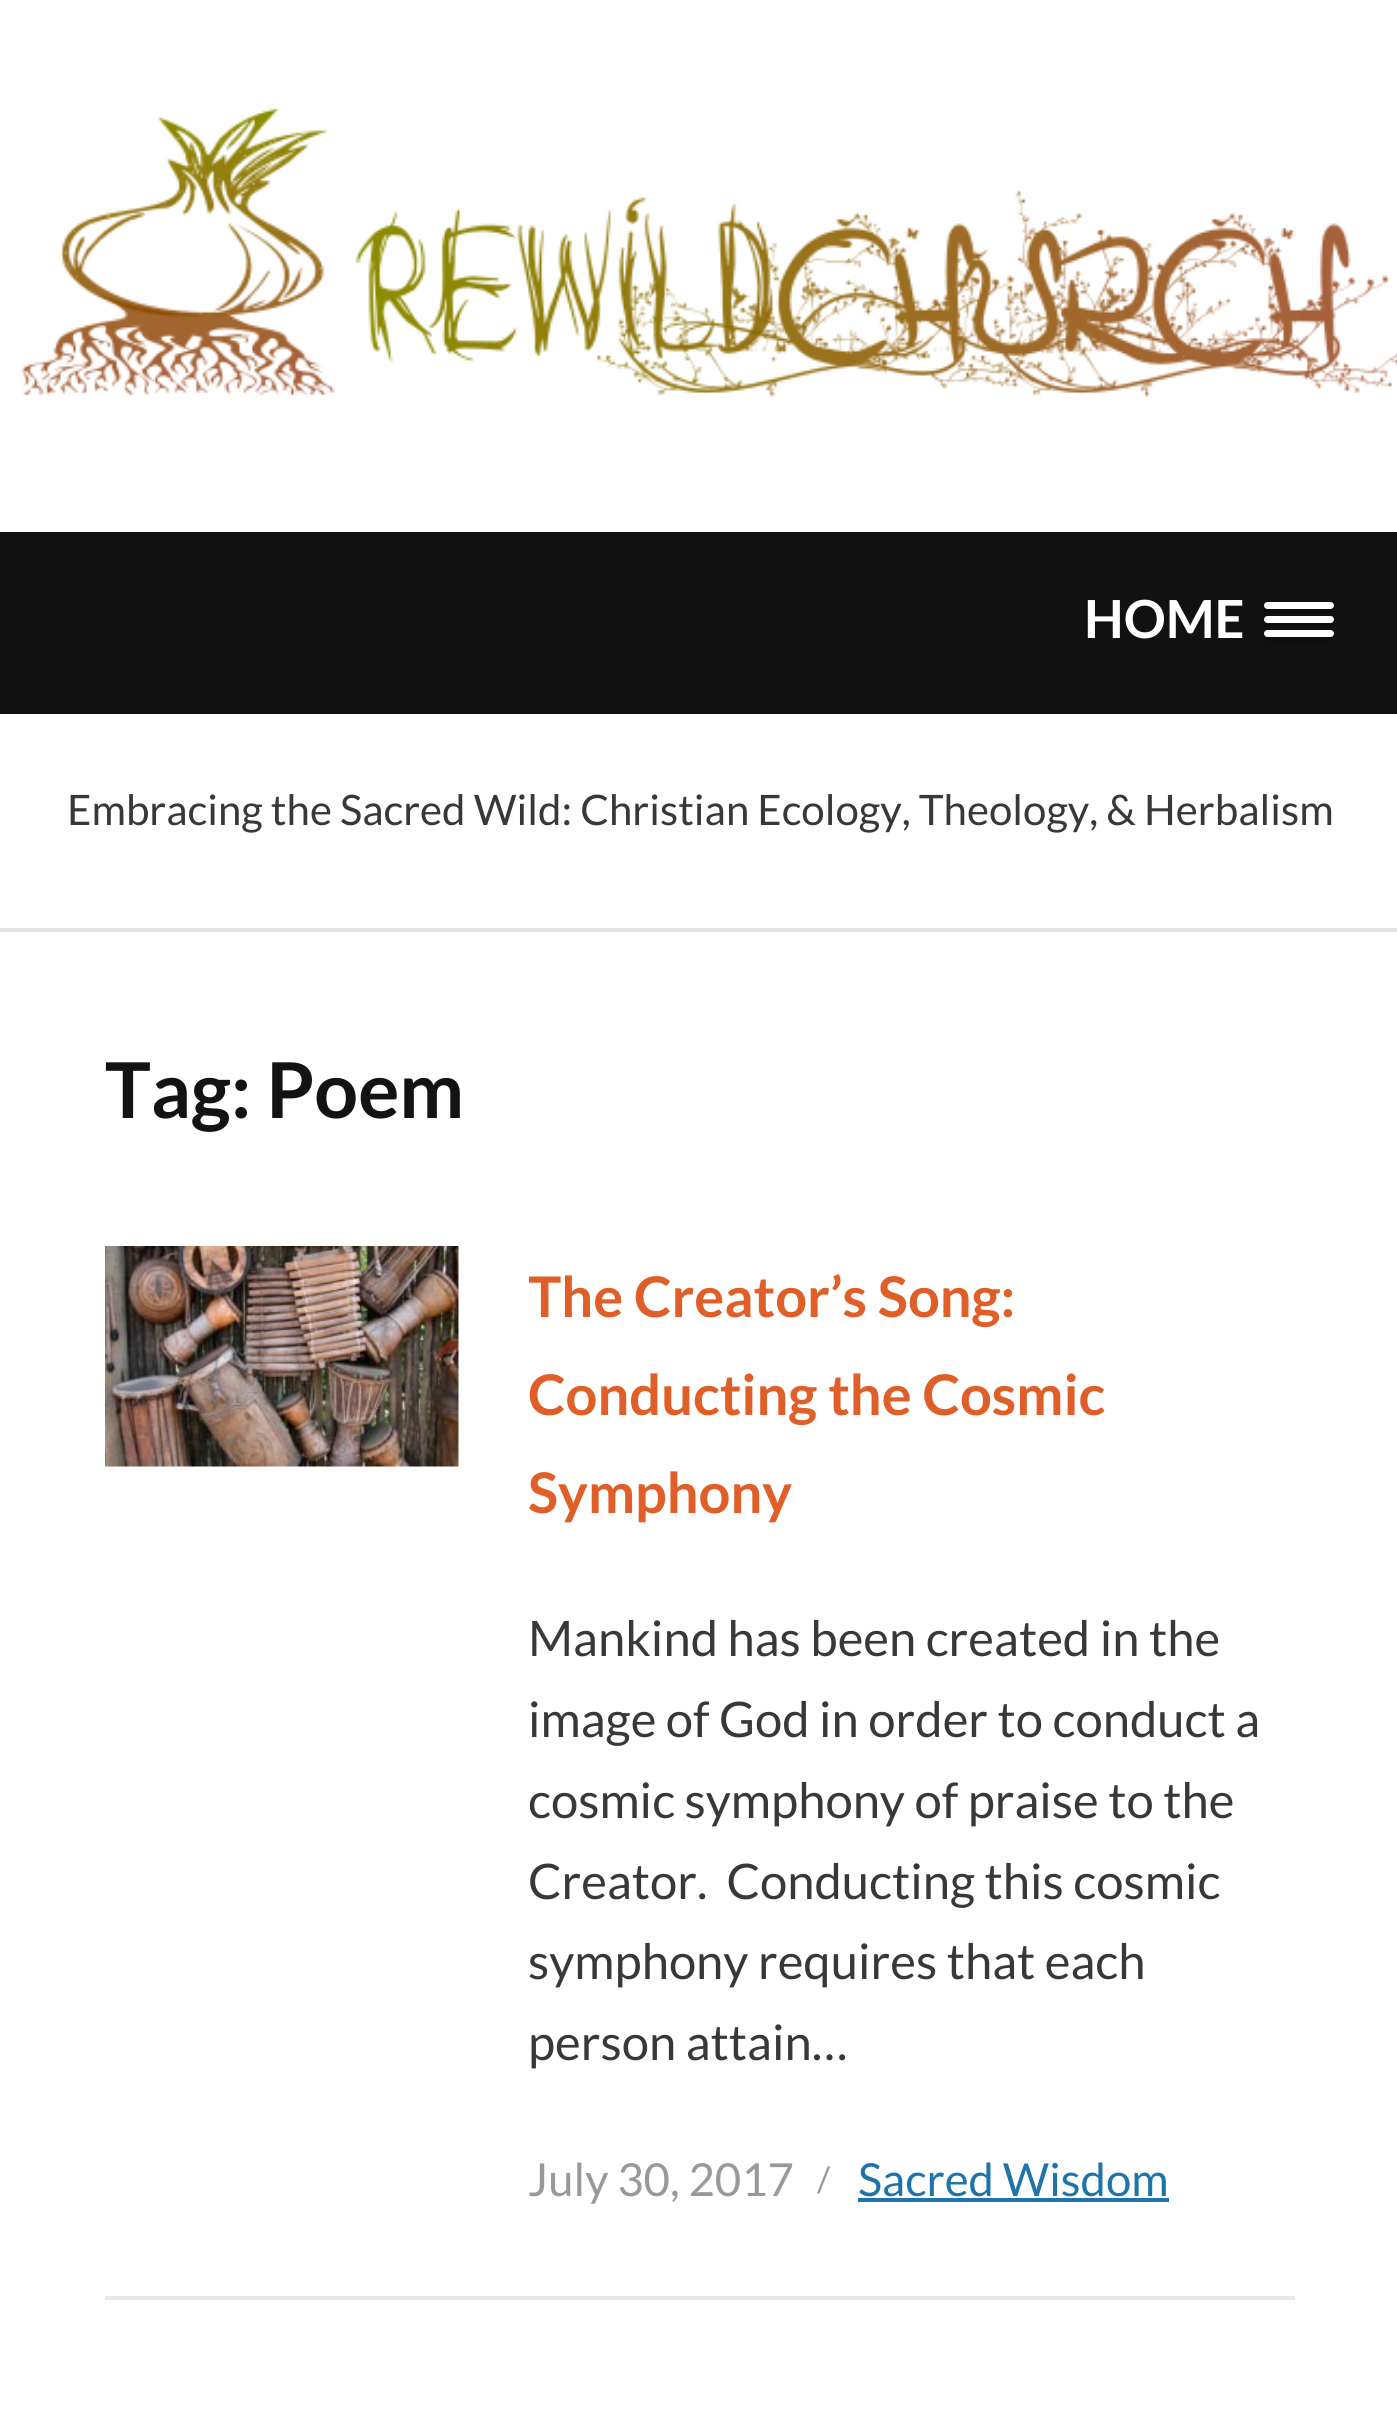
import math
import cairo

surface = cairo.ImageSurface(cairo.FORMAT_RGB24, 1397, 2426)
cr = cairo.Context(surface)
options = cairo.FontOptions()
options.set_hint_metrics(cairo.HINT_METRICS_OFF)
options.set_hint_style(cairo.HINT_STYLE_NONE)
cr.set_font_options(options)
cr.set_miter_limit(4)


def rgb(code):
    cr.set_source_rgb(*(v / 255 for v in bytes.fromhex(code[-6:])))


def rrect(x, y, w, h, r):
    cr.new_sub_path()
    for i, (u, v) in enumerate([(x + w - r, y + h - r), (x + r, y + h - r), (x + r, y + r), (x + w - r, y + r)]):
        cr.arc(u, v, r, i * math.pi / 2, (i + 1) * math.pi / 2)
    cr.close_path()


def image(path, x, y, w, h):
    cr.save()
    cr.set_source_surface(cairo.ImageSurface.create_from_png(path), x, y)
    cr.rectangle(x, y, w, h)
    cr.fill()
    cr.restore()


rgb("#ffffff")
cr.paint()
rgb("#e7e3e0")
cr.rectangle(0, 928, 1397, 4)
cr.fill()
image("img/1.png", 21, 107, 1376, 291)
rgb("#111111")
cr.rectangle(0, 532, 1397, 182)
cr.fill()
rgb("#0d0d0d")
cr.new_path()
cr.move_to(1264, 608)
cr.curve_to(1261, 614, 1271, 613, 1278, 613)
cr.line_to(1330, 613)
cr.curve_to(1333, 613, 1335, 609, 1333, 607)
cr.curve_to(1333, 608, 1331, 609, 1330, 609)
cr.line_to(1267, 609)
cr.curve_to(1266, 609, 1265, 609, 1264, 608)
cr.close_path()
cr.fill()
rgb("#ffffff")
rrect(1264, 602, 70, 7, 3.5)
cr.fill()
rgb("#0d0d0d")
cr.new_path()
cr.move_to(1264, 622)
cr.curve_to(1261, 628, 1271, 627, 1278, 627)
cr.line_to(1330, 627)
cr.curve_to(1333, 627, 1335, 623, 1333, 621)
cr.curve_to(1333, 622, 1331, 623, 1330, 623)
cr.line_to(1267, 623)
cr.curve_to(1266, 623, 1265, 623, 1264, 622)
cr.close_path()
cr.fill()
rgb("#ffffff")
rrect(1264, 616, 70, 7, 3.5)
cr.fill()
rgb("#0d0d0d")
cr.new_path()
cr.move_to(1264, 636)
cr.curve_to(1261, 642, 1271, 641, 1278, 641)
cr.line_to(1330, 641)
cr.curve_to(1333, 641, 1335, 637, 1333, 635)
cr.curve_to(1333, 636, 1331, 637, 1330, 637)
cr.line_to(1267, 637)
cr.curve_to(1266, 637, 1265, 637, 1264, 636)
cr.close_path()
cr.fill()
rgb("#ffffff")
rrect(1264, 630, 70, 7, 3.5)
cr.fill()
rgb("#e9e9e9")
cr.rectangle(105, 2296, 1190, 4)
cr.fill()
image("img/2.png", 105, 1246, 354, 221)
rgb("#1e74a9")
cr.rectangle(858, 2198, 311, 4)
cr.fill()
cr.select_font_face("Lato", cairo.FONT_SLANT_NORMAL, cairo.FONT_WEIGHT_BOLD)
cr.set_font_size(52.5)
rgb("#ffffff")
cr.move_to(1084, 638)
cr.show_text("HOME")
cr.select_font_face("Lato")
cr.set_font_size(42)
rgb("#383838")
cr.move_to(67, 825)
cr.show_text("Embracing the Sacred Wild: Christian Ecology, Theology, & Herbalism")
cr.select_font_face("Lato", cairo.FONT_SLANT_NORMAL, cairo.FONT_WEIGHT_BOLD)
cr.set_font_size(77)
rgb("#131313")
cr.move_to(105, 1118)
cr.show_text("Tag: Poem")
cr.save()
cr.rectangle(529, 1246, 766, 980)
cr.clip()
cr.set_font_size(56)
rgb("#e05f28")
cr.move_to(528, 1317)
cr.show_text("The Creator’s Song:")
cr.restore()
cr.set_font_size(56)
rgb("#e05f28")
cr.move_to(528, 1415)
cr.show_text("Conducting the Cosmic")
cr.move_to(528, 1513)
cr.show_text("Symphony")
cr.select_font_face("Lato")
cr.set_font_size(49)
rgb("#383838")
for x, y, s in [
    (528, 1656, "Mankind has been created in the"),
    (528, 1737, "image of God in order to conduct a"),
    (528, 1818, "cosmic symphony of praise to the"),
    (528, 1899, "Creator.  Conducting this cosmic"),
    (528, 1979, "symphony requires that each"),
    (528, 2060, "person attain…"),
]:
    cr.move_to(x, y)
    cr.show_text(s)
cr.set_font_size(45.5)
rgb("#999999")
cr.move_to(528, 2196)
cr.show_text("July 30, 2017")
cr.set_font_size(35)
cr.move_to(817, 2192)
cr.show_text("/")
cr.set_font_size(45.5)
rgb("#1e74a9")
cr.move_to(858, 2196)
cr.show_text("Sacred Wisdom")
surface.write_to_png("page.png")
